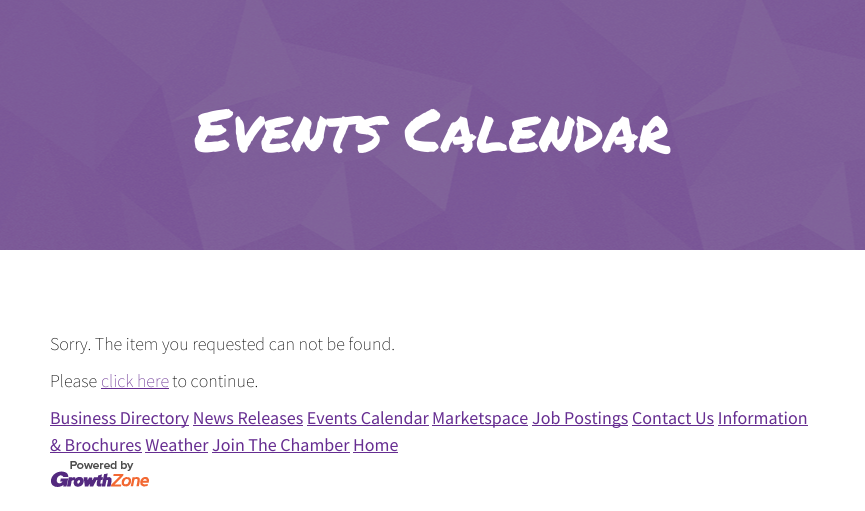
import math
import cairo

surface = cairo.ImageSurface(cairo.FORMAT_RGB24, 865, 511)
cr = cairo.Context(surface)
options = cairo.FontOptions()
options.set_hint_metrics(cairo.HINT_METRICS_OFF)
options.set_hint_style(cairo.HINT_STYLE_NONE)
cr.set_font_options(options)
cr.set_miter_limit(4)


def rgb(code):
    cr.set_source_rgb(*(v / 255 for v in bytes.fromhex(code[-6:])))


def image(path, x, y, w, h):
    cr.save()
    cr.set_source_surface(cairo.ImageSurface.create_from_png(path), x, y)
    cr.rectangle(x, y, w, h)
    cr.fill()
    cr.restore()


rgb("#ffffff")
cr.paint()
image("img/1.png", 0, 0, 865, 250)
for x, y, w, h, color in [
    (101, 388, 68, 1, "#662d91"),
    (50, 425, 139, 1, "#662d91"),
    (432, 425, 96, 1, "#662d91"),
    (532, 425, 96, 1, "#662d91"),
    (193, 425, 110, 1, "#662d91"),
    (307, 425, 122, 1, "#662d91"),
    (632, 425, 82, 1, "#662d91"),
    (718, 425, 90, 1, "#662d91"),
    (50, 452, 92, 1, "#662d91"),
    (145, 452, 63, 1, "#662d91"),
    (212, 452, 138, 1, "#662d91"),
    (353, 452, 45, 1, "#662d91"),
]:
    rgb(color)
    cr.rectangle(x, y, w, h)
    cr.fill()
image("img/2.png", 51, 461, 98, 26)
cr.select_font_face("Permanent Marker")
cr.set_font_size(60)
rgb("#ffffff")
cr.move_to(194, 152)
cr.show_text("Events Calendar")
cr.select_font_face("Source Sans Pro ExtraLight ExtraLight")
cr.set_font_size(18)
rgb("#000000")
cr.move_to(50, 350)
cr.show_text("Sorry. The item you requested can not be found.")
cr.move_to(50, 387)
cr.show_text("Please")
rgb("#662d91")
cr.move_to(101, 387)
cr.show_text("click here")
rgb("#000000")
cr.move_to(172, 387)
cr.show_text("to continue.")
cr.select_font_face("Source Sans Pro")
rgb("#662d91")
for x, y, s in [
    (50, 424, "Business Directory News Releases Events Calendar"),
    (432, 424, "Marketspace"),
    (532, 424, "Job Postings Contact Us Information"),
    (50, 451, "& Brochures Weather Join The Chamber Home"),
]:
    cr.move_to(x, y)
    cr.show_text(s)
surface.write_to_png("page.png")
